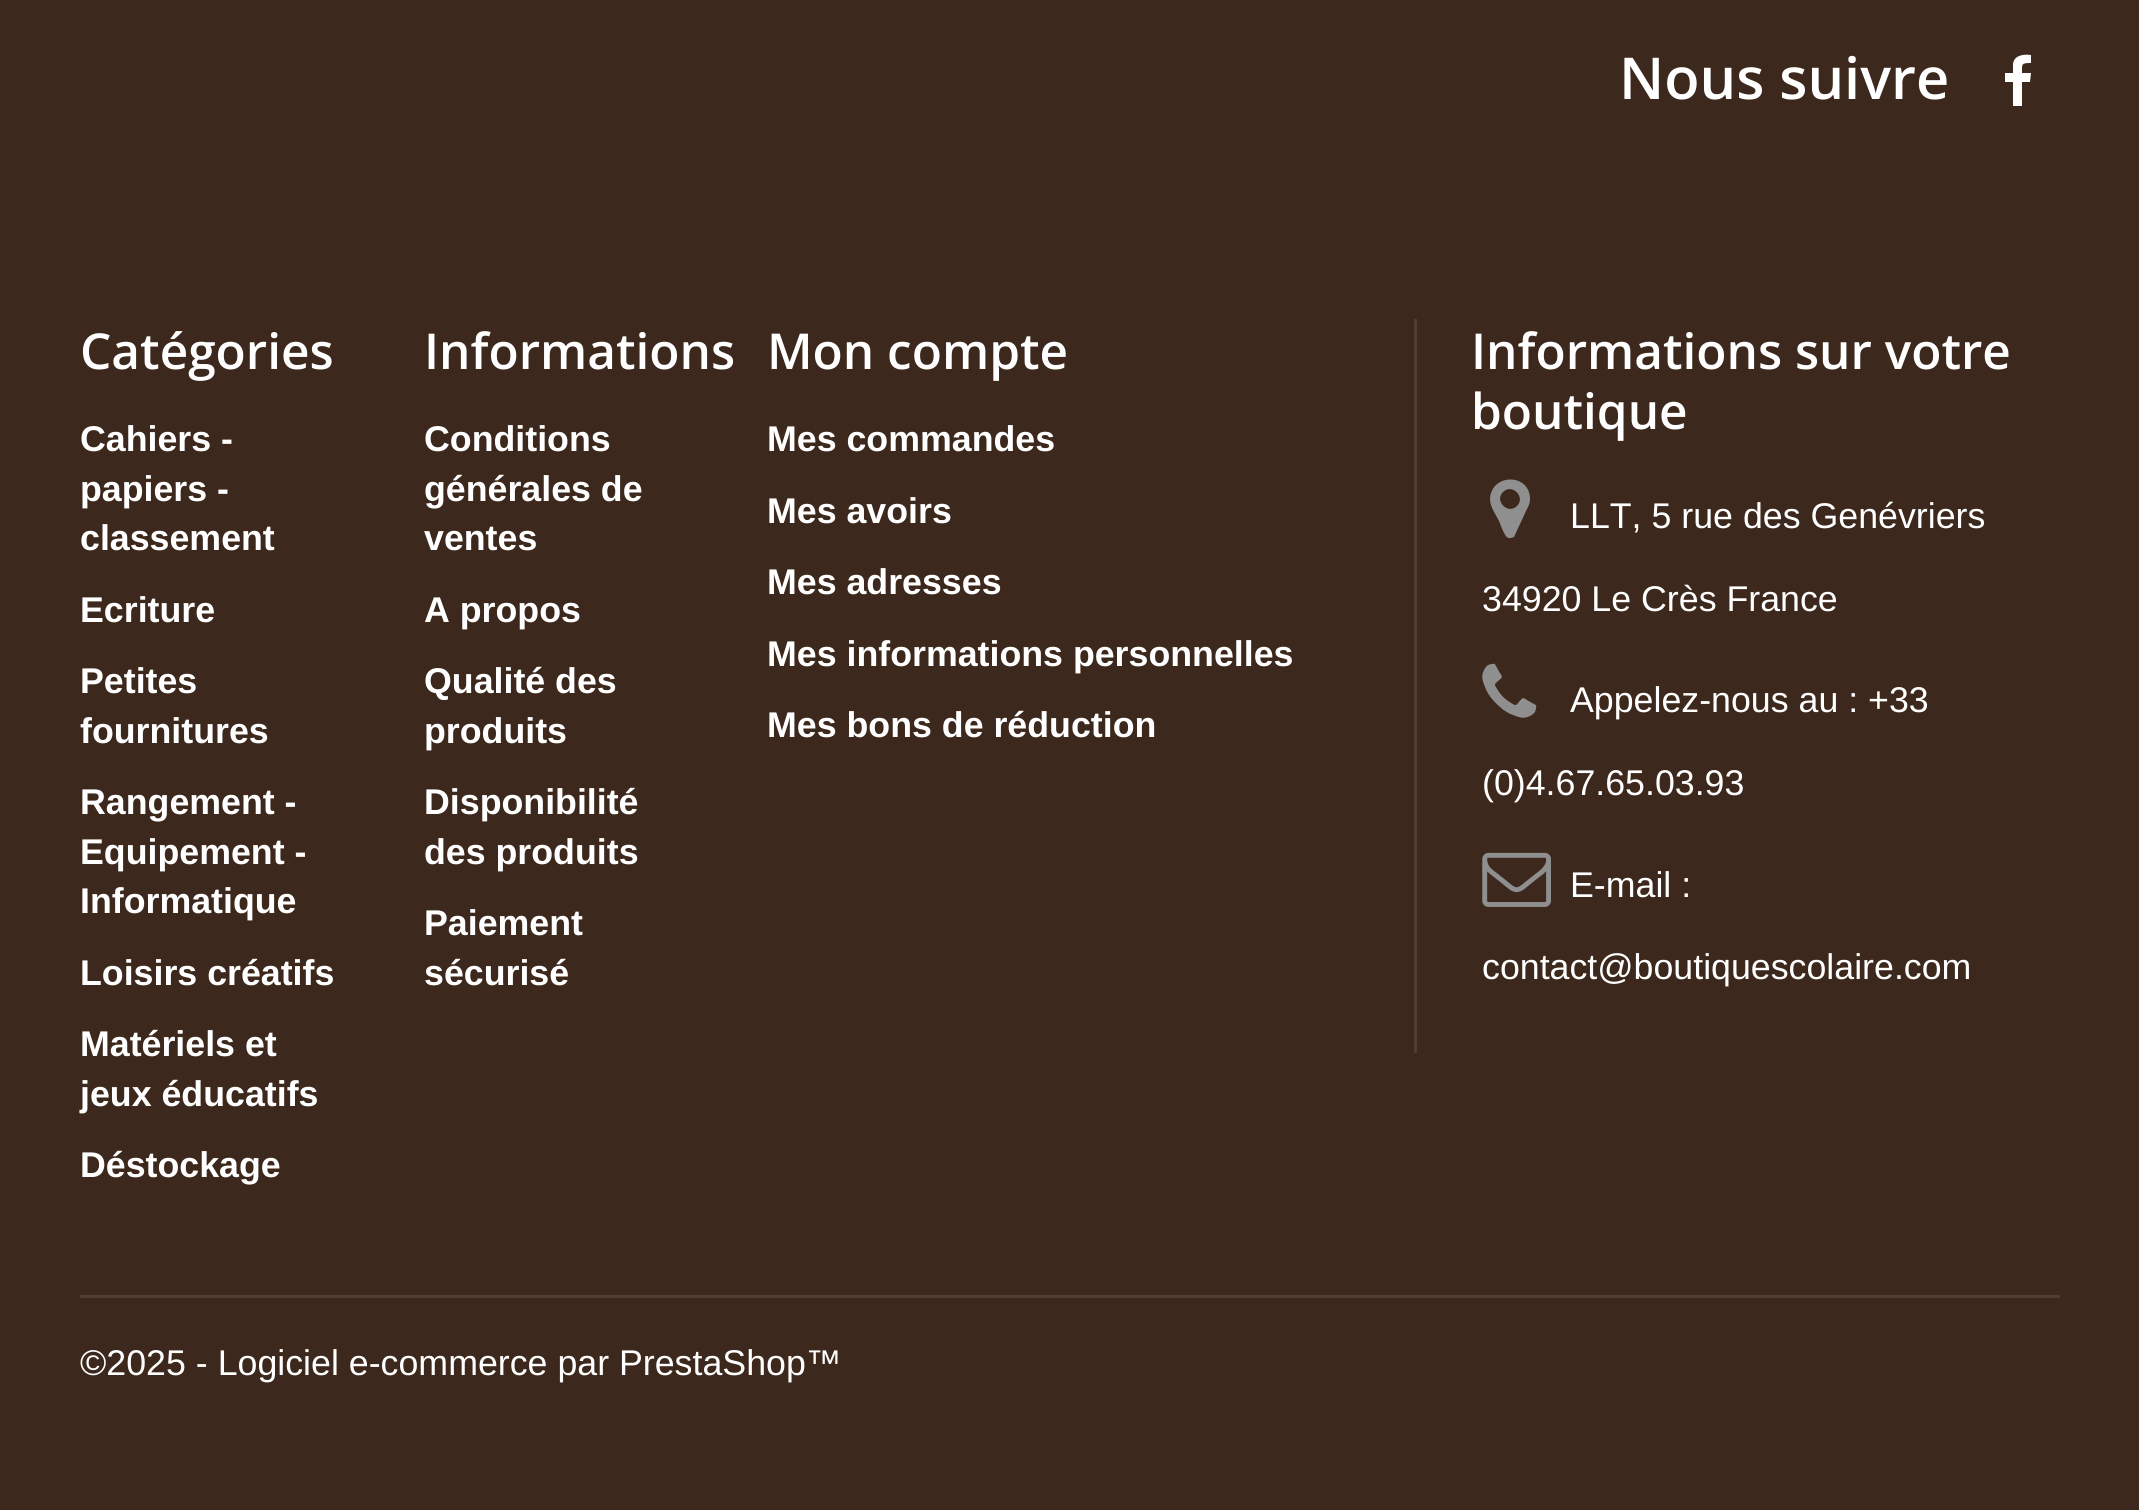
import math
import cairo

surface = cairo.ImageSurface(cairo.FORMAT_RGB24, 2139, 1510)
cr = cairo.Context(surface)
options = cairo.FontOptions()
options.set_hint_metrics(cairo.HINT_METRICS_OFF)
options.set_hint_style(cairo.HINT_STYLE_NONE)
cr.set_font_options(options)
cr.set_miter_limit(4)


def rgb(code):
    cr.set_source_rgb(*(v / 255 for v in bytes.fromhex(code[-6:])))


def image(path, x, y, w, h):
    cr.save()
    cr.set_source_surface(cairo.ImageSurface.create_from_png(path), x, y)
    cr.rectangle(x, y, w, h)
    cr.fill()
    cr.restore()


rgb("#3c281c")
cr.paint()
rgb("#ffffff")
cr.new_path()
cr.move_to(2031, 55)
cr.line_to(2031, 63)
cr.curve_to(2021, 63, 2022, 64, 2022, 73)
cr.line_to(2031, 73)
cr.line_to(2030, 82)
cr.line_to(2022, 82)
cr.line_to(2022, 106)
cr.line_to(2013, 106)
cr.line_to(2013, 82)
cr.line_to(2005, 82)
cr.line_to(2005, 73)
cr.line_to(2013, 73)
cr.line_to(2013, 64)
cr.curve_to(2014, 55, 2024, 54, 2031, 55)
cr.close_path()
cr.fill()
rgb("#503e33")
cr.rectangle(1414, 319, 3, 734)
cr.fill()
rgb("#908f8f")
cr.new_path()
cr.move_to(1517, 506)
cr.curve_to(1526, 497, 1512, 483, 1503, 492)
cr.curve_to(1494, 501, 1508, 515, 1517, 506)
cr.close_path()
cr.move_to(1530, 499)
cr.curve_to(1530, 504, 1528, 507, 1526, 511)
cr.line_to(1514, 537)
cr.line_to(1511, 538)
cr.curve_to(1506, 539, 1505, 534, 1503, 531)
cr.line_to(1499, 521)
cr.curve_to(1496, 515, 1490, 507, 1490, 499)
cr.curve_to(1491, 473, 1530, 473, 1530, 499)
cr.close_path()
cr.fill()
image("img/1.png", 1482, 663, 55, 55)
image("img/2.png", 1482, 852, 69, 55)
rgb("#503e33")
cr.rectangle(80, 1295, 1980, 3)
cr.fill()
cr.select_font_face("Open Sans SemiBold")
cr.set_font_size(57.75)
rgb("#ffffff")
cr.move_to(1619, 99)
cr.show_text("Nous suivre")
cr.set_font_size(49.5)
cr.move_to(80, 369)
cr.show_text("Catégories")
cr.select_font_face("Liberation Sans", cairo.FONT_SLANT_NORMAL, cairo.FONT_WEIGHT_BOLD)
cr.set_font_size(35.75)
for x, y, s in [
    (80, 451, "Cahiers -"),
    (80, 501, "papiers -"),
    (80, 550, "classement"),
    (80, 622, "Ecriture"),
    (80, 693, "Petites"),
    (80, 743, "fournitures"),
    (80, 814, "Rangement -"),
    (80, 864, "Equipement -"),
    (80, 913, "Informatique"),
    (80, 985, "Loisirs créatifs"),
    (80, 1056, "Matériels et"),
    (80, 1106, "jeux éducatifs"),
    (80, 1177, "Déstockage"),
]:
    cr.move_to(x, y)
    cr.show_text(s)
cr.select_font_face("Open Sans SemiBold")
cr.set_font_size(49.5)
cr.move_to(424, 369)
cr.show_text("Informations")
cr.select_font_face("Liberation Sans", cairo.FONT_SLANT_NORMAL, cairo.FONT_WEIGHT_BOLD)
cr.set_font_size(35.75)
for x, y, s in [
    (424, 451, "Conditions"),
    (424, 501, "générales de"),
    (424, 550, "ventes"),
    (424, 622, "A propos"),
    (424, 693, "Qualité des"),
    (424, 743, "produits"),
    (424, 814, "Disponibilité"),
    (424, 864, "des produits"),
    (424, 935, "Paiement"),
    (424, 985, "sécurisé"),
]:
    cr.move_to(x, y)
    cr.show_text(s)
cr.select_font_face("Open Sans SemiBold")
cr.set_font_size(49.5)
cr.move_to(767, 369)
cr.show_text("Mon compte")
cr.select_font_face("Liberation Sans", cairo.FONT_SLANT_NORMAL, cairo.FONT_WEIGHT_BOLD)
cr.set_font_size(35.75)
for x, y, s in [
    (767, 451, "Mes commandes"),
    (767, 523, "Mes avoirs"),
    (767, 594, "Mes adresses"),
    (767, 666, "Mes informations personnelles"),
    (767, 737, "Mes bons de réduction"),
]:
    cr.move_to(x, y)
    cr.show_text(s)
cr.select_font_face("Open Sans SemiBold")
cr.set_font_size(49.5)
cr.move_to(1471, 369)
cr.show_text("Informations sur votre")
cr.move_to(1471, 429)
cr.show_text("boutique")
cr.select_font_face("Liberation Sans")
cr.set_font_size(35.75)
for x, y, s in [
    (1570, 528, "LLT, 5 rue des Genévriers"),
    (1482, 611, "34920 Le Crès France"),
    (1570, 712, "Appelez-nous au : +33"),
    (1482, 795, "(0)4.67.65.03.93"),
    (1570, 897, "E-mail :"),
    (1482, 979, "contact@boutiquescolaire.com"),
    (80, 1375, "©2025 - Logiciel e-commerce par PrestaShop™"),
]:
    cr.move_to(x, y)
    cr.show_text(s)
surface.write_to_png("page.png")
